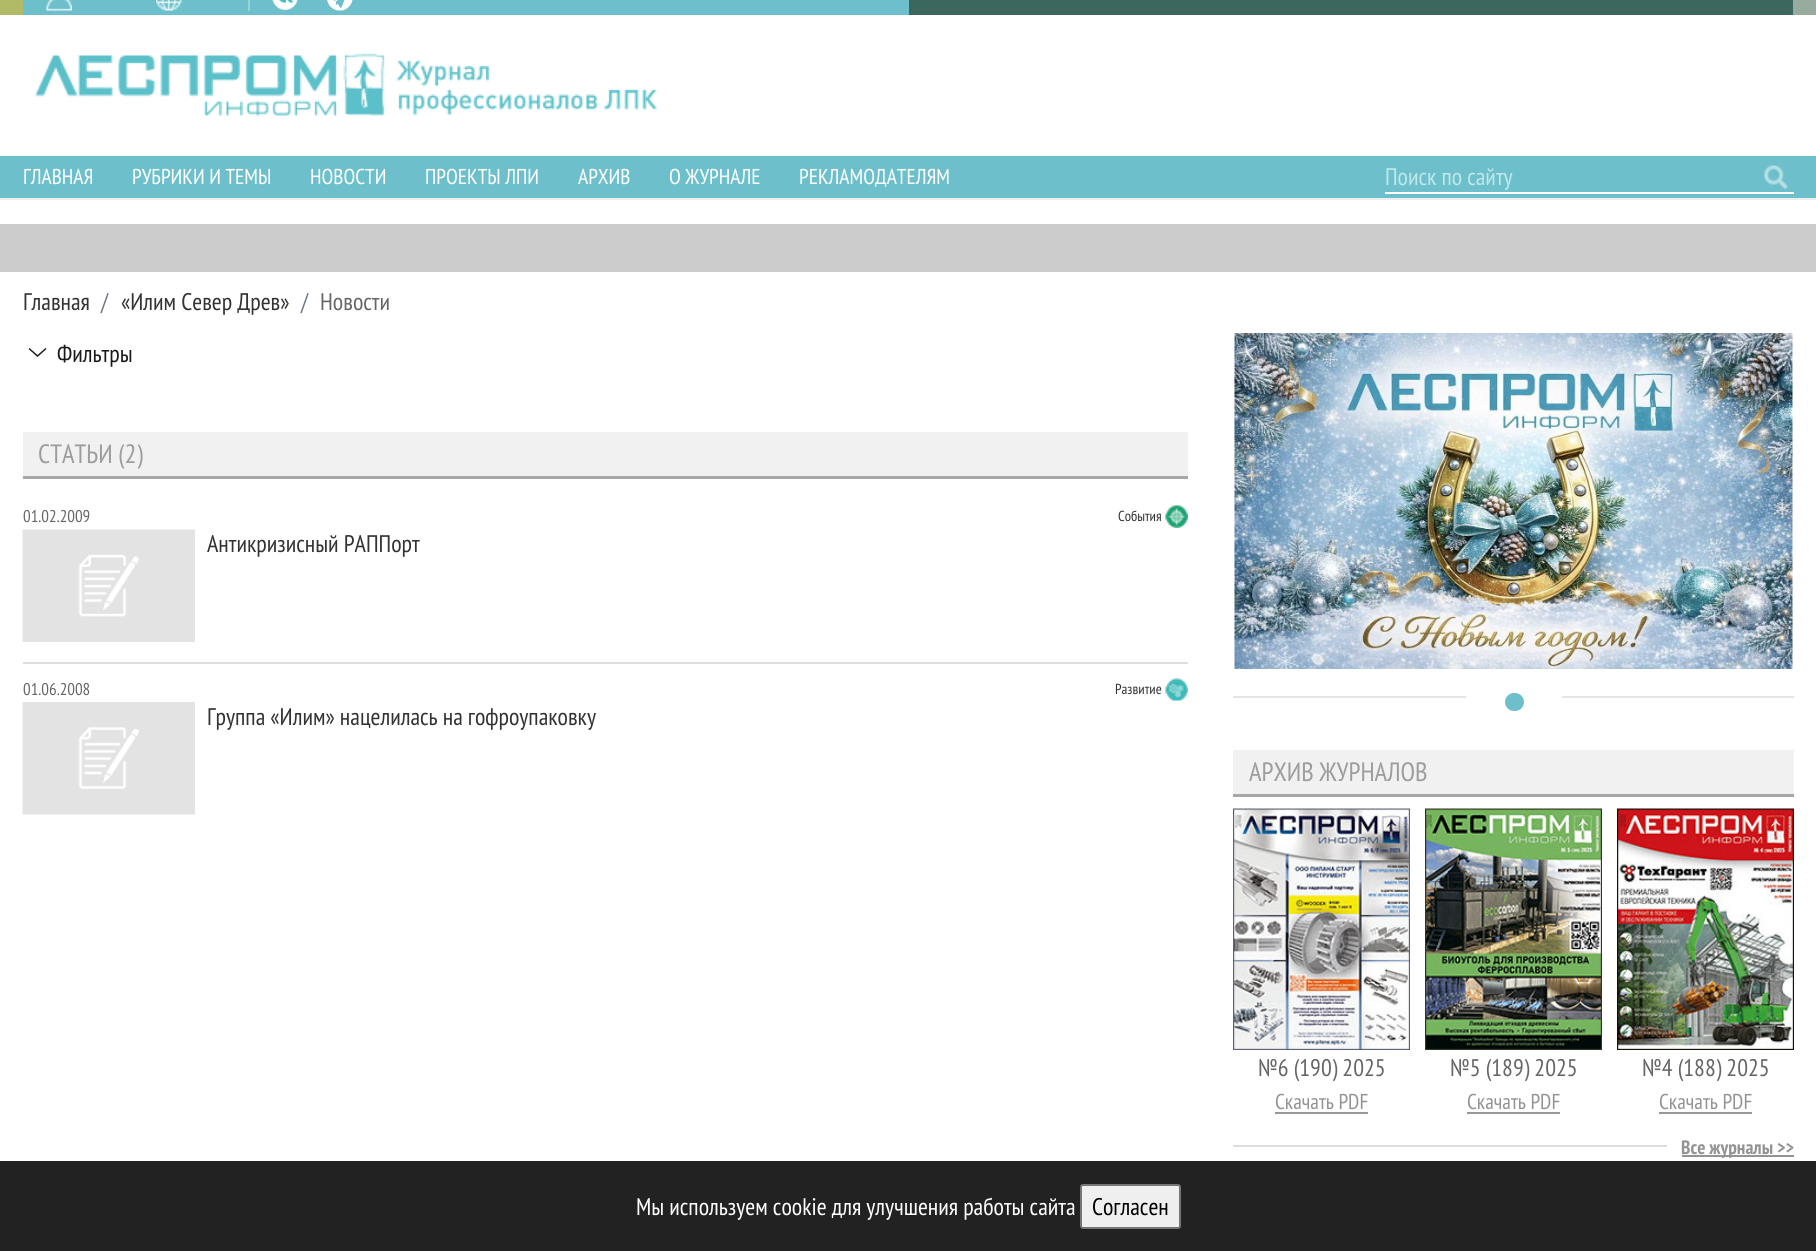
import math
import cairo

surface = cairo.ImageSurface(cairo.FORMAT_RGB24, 1816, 1251)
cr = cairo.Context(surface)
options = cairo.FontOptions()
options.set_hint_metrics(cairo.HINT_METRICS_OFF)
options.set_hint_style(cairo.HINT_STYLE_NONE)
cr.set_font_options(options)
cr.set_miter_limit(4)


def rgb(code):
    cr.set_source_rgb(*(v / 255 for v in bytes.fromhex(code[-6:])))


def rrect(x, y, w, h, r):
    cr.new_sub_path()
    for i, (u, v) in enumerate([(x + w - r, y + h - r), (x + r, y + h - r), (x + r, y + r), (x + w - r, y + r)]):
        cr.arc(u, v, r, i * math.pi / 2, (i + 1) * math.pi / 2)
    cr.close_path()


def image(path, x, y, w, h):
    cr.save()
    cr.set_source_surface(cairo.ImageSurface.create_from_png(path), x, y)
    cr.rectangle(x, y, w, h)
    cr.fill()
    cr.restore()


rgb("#ffffff")
cr.paint()
for x, y, w, h, color in [
    (0, 198, 1816, 2, "#eeeeee"),
    (0, 156, 1816, 42, "#6dc0cb"),
    (1385, 192, 409, 2, "#ffffff"),
]:
    rgb(color)
    cr.rectangle(x, y, w, h)
    cr.fill()
image("img/1.png", 1764, 165, 24, 24)
rgb("#cccccc")
cr.rectangle(0, 224, 1816, 48)
cr.fill()
rgb("#1a1a1a")
cr.set_fill_rule(cairo.FILL_RULE_EVEN_ODD)
cr.new_path()
cr.move_to(29.5, 348)
cr.line_to(37.5, 355)
cr.line_to(45.5, 348)
cr.line_to(46.5, 349)
cr.line_to(37.5, 357)
cr.line_to(28.5, 349)
cr.close_path()
cr.fill()
rgb("#f1f1f1")
cr.rectangle(23, 432, 1165, 44)
cr.fill()
rgb("#a7a7a7")
cr.rectangle(23, 476, 1165, 3)
cr.fill()
image("img/2.png", 1165, 505, 23, 23)
image("img/3.png", 22, 529, 173, 113)
rgb("#dddddd")
cr.rectangle(23, 662, 1165, 2)
cr.fill()
image("img/4.png", 1165, 678, 23, 23)
image("img/5.png", 22, 702, 173, 113)
image("img/6.png", 1234, 333, 559, 336)
rgb("#e5e5e5")
cr.rectangle(1233, 696, 561, 2)
cr.fill()
rgb("#ffffff")
cr.rectangle(1466, 696, 96, 2)
cr.fill()
rgb("#6dc0cb")
rrect(1507.5, 695.5, 14, 13, 6.5)
cr.fill_preserve()
cr.set_line_width(5)
cr.stroke()
rgb("#f1f1f1")
cr.rectangle(1233, 750, 561, 44)
cr.fill()
rgb("#a7a7a7")
cr.rectangle(1233, 794, 561, 3)
cr.fill()
image("img/7.png", 1233, 808, 177, 242)
rgb("#979797")
cr.rectangle(1275, 1112, 93, 2)
cr.fill()
image("img/8.png", 1425, 808, 177, 242)
cr.rectangle(1467, 1112, 93, 2)
cr.fill()
image("img/9.png", 1617, 808, 177, 242)
for x, y, w, h, color in [
    (1659, 1112, 93, 2, "#979797"),
    (1233, 1145, 434, 2, "#dddddd"),
    (1682, 1155, 112, 2, "#939393"),
]:
    rgb(color)
    cr.rectangle(x, y, w, h)
    cr.fill()
gradient = cairo.LinearGradient(0, -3, 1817, -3)
gradient.add_color_stop_rgba(0, 0.694, 0.729, 0.404, 1)
gradient.add_color_stop_rgba(0.5, 0.694, 0.729, 0.404, 1)
gradient.add_color_stop_rgba(0.51, 0.592, 0.671, 0.624, 1)
gradient.add_color_stop_rgba(1, 0.592, 0.671, 0.624, 1)
cr.set_source(gradient)
cr.rectangle(0, 0, 1816, 15)
cr.fill()
rgb("#6dc0cb")
cr.rectangle(23, 0, 886, 15)
cr.fill()
image("img/10.png", 46, 0, 26, 11)
image("img/11.png", 156, 0, 26, 11)
rgb("#99d3da")
cr.rectangle(248, 0, 2, 11)
cr.fill()
image("img/12.png", 272, 0, 26, 11)
image("img/13.png", 327, 0, 26, 11)
rgb("#3c675f")
cr.rectangle(909, 0, 884, 15)
cr.fill()
image("img/14.png", 34, 53, 624, 63)
rgb("#222222")
cr.rectangle(0, 1161, 1816, 90)
cr.fill()
rgb("#efefef")
rrect(1081, 1185, 99, 43, 2)
cr.fill_preserve()
rgb("#767676")
cr.set_line_width(2)
cr.stroke()
cr.select_font_face("PT Sans Narrow")
cr.set_font_size(21.5)
rgb("#ffffff")
for x, y, s in [
    (23, 184, "ГЛАВНАЯ"),
    (132, 184, "РУБРИКИ И ТЕМЫ"),
    (310, 184, "НОВОСТИ"),
    (425, 184, "ПРОЕКТЫ ЛПИ"),
    (578, 184, "АРХИВ"),
    (669, 184, "О ЖУРНАЛЕ"),
    (799, 184, "РЕКЛАМОДАТЕЛЯМ"),
]:
    cr.move_to(x, y)
    cr.show_text(s)
cr.set_font_size(24)
rgb("#bfe8ea")
cr.move_to(1385, 185)
cr.show_text("Поиск по сайту")
rgb("#333333")
cr.move_to(23, 310)
cr.show_text("Главная")
rgb("#6c757d")
cr.move_to(101, 310)
cr.show_text("/")
rgb("#333333")
cr.move_to(121, 310)
cr.show_text("«Илим Север Древ»")
rgb("#6c757d")
cr.move_to(301, 310)
cr.show_text("/")
rgb("#666666")
cr.move_to(320, 310)
cr.show_text("Новости")
rgb("#1a1a1a")
cr.move_to(57, 362)
cr.show_text("Фильтры")
cr.set_font_size(26.5)
rgb("#9d9d9d")
cr.move_to(38, 463)
cr.show_text("СТАТЬИ (2)")
cr.set_font_size(17)
rgb("#666666")
cr.move_to(23, 522)
cr.show_text("01.02.2009")
cr.set_font_size(14.5)
rgb("#333333")
cr.move_to(1118, 521)
cr.show_text("События")
cr.set_font_size(24)
cr.move_to(207, 552)
cr.show_text("Антикризисный РАППорт")
cr.set_font_size(17)
rgb("#666666")
cr.move_to(23, 695)
cr.show_text("01.06.2008")
cr.set_font_size(14.5)
rgb("#333333")
cr.move_to(1115, 694)
cr.show_text("Развитие")
cr.set_font_size(24)
cr.move_to(207, 725)
cr.show_text("Группа «Илим» нацелилась на гофроупаковку")
cr.set_font_size(26.5)
rgb("#9d9d9d")
cr.move_to(1249, 781)
cr.show_text("АРХИВ ЖУРНАЛОВ")
cr.set_font_size(24)
rgb("#666666")
cr.move_to(1258, 1076)
cr.show_text("№6 (190) 2025")
cr.set_font_size(21.5)
rgb("#939393")
cr.move_to(1275, 1109)
cr.show_text("Скачать PDF")
cr.set_font_size(24)
rgb("#666666")
cr.move_to(1450, 1076)
cr.show_text("№5 (189) 2025")
cr.set_font_size(21.5)
rgb("#939393")
cr.move_to(1467, 1109)
cr.show_text("Скачать PDF")
cr.set_font_size(24)
rgb("#666666")
cr.move_to(1642, 1076)
cr.show_text("№4 (188) 2025")
cr.set_font_size(21.5)
rgb("#939393")
cr.move_to(1659, 1109)
cr.show_text("Скачать PDF")
cr.select_font_face("PT Sans Narrow", cairo.FONT_SLANT_NORMAL, cairo.FONT_WEIGHT_BOLD)
cr.set_font_size(19.25)
cr.move_to(1681, 1154)
cr.show_text("Все журналы >>")
cr.select_font_face("PT Sans Narrow")
cr.set_font_size(24)
rgb("#ffffff")
cr.move_to(636, 1215)
cr.show_text("Мы используем cookie для улучшения работы сайта")
rgb("#000000")
cr.move_to(1092, 1215)
cr.show_text("Согласен")
surface.write_to_png("page.png")
